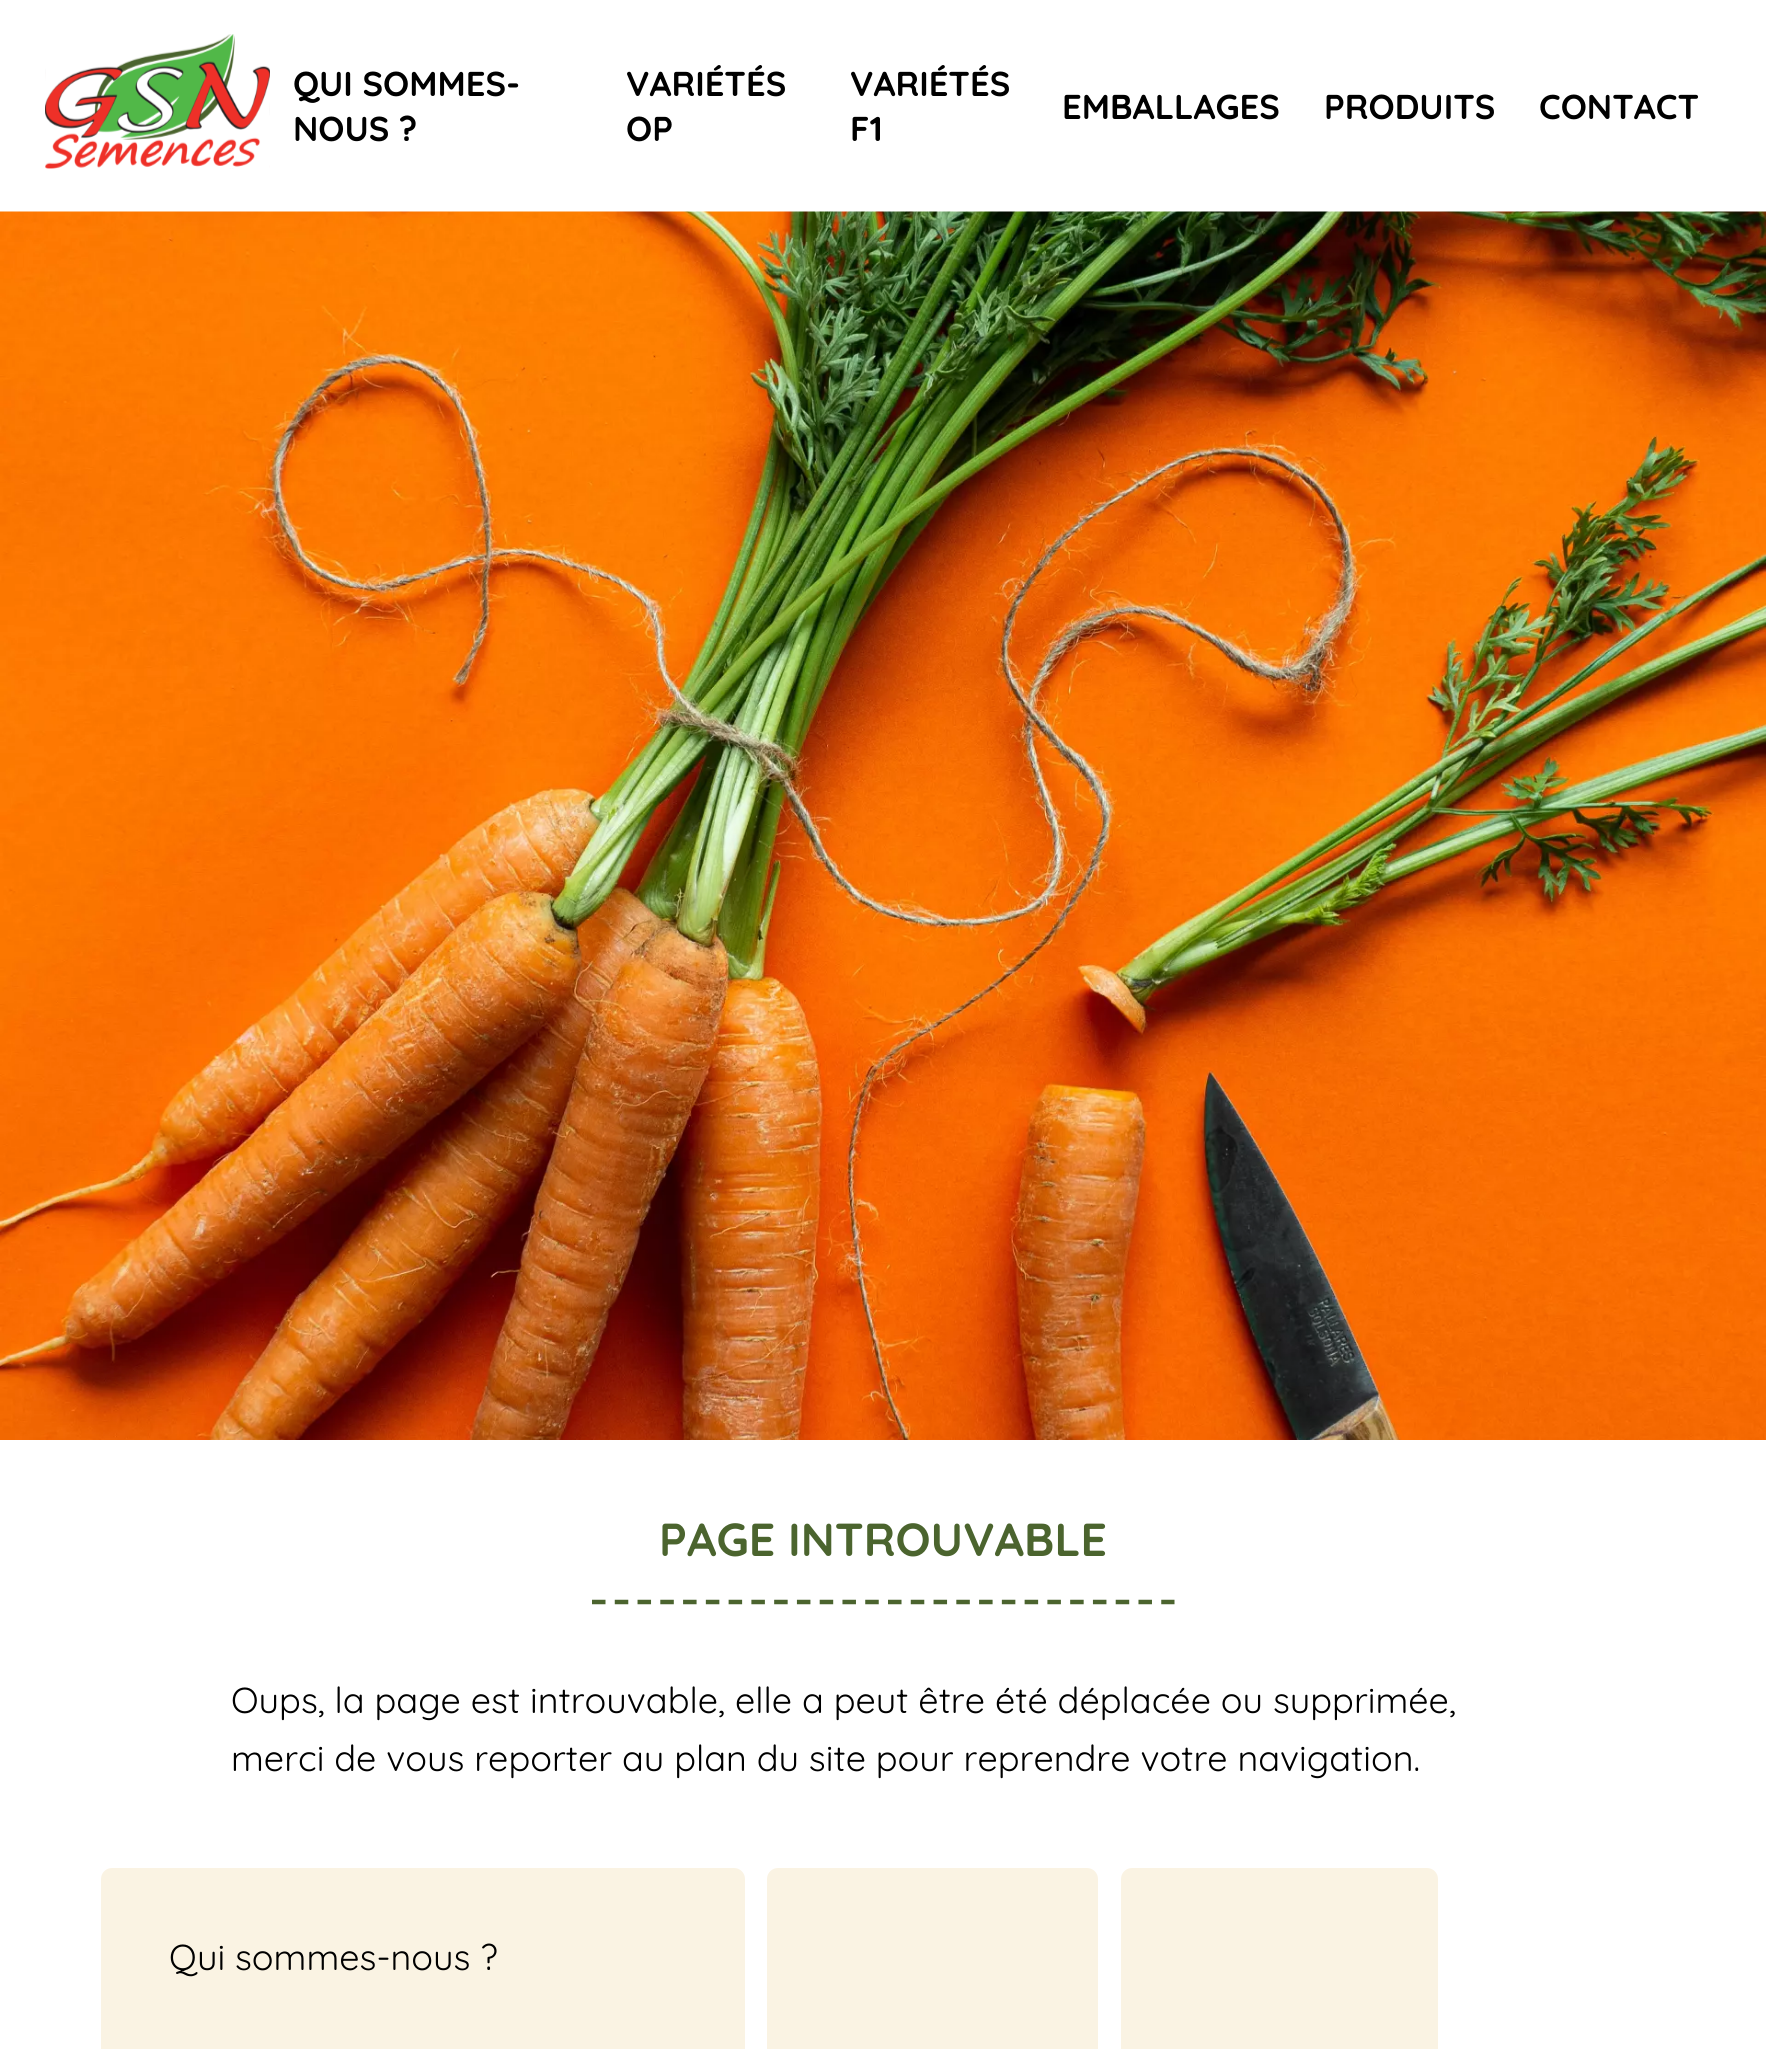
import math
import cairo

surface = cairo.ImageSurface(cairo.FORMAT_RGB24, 1766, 2049)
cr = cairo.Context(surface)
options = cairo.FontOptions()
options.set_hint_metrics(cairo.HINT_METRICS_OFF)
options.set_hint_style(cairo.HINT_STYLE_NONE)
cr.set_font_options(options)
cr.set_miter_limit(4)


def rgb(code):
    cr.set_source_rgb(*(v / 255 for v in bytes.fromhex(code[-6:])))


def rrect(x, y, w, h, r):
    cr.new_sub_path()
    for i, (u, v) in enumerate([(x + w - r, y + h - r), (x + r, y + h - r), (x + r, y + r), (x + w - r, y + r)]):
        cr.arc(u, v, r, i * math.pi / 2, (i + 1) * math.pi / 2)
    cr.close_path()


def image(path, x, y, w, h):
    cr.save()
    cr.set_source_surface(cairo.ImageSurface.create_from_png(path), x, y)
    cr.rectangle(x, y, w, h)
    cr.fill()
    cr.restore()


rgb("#ffffff")
cr.paint()
image("img/1.png", 45, 34, 225, 135)
image("img/2.png", 0, 211, 1766, 1229)
cr.new_path()
cr.move_to(592, 1602)
cr.line_to(1174.5, 1602)
rgb("#4b642e")
cr.set_line_width(4.5)
cr.set_dash([13.5, 9.27])
cr.stroke()
rgb("#faf3e3")
rrect(101, 1868, 644, 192, 11)
cr.fill()
rrect(767, 1868, 331, 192, 11)
cr.fill()
rrect(1121, 1868, 317, 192, 11)
cr.fill()
cr.select_font_face("Quicksand", cairo.FONT_SLANT_NORMAL, cairo.FONT_WEIGHT_BOLD)
cr.set_font_size(34.5)
rgb("#000000")
for x, y, s in [
    (293, 96, "QUI SOMMES-"),
    (293, 141, "NOUS ?"),
    (626, 96, "VARIÉTÉS"),
    (626, 141, "OP"),
    (850, 96, "VARIÉTÉS"),
    (850, 141, "F1"),
    (1062, 119, "EMBALLAGES"),
    (1324, 119, "PRODUITS"),
    (1539, 119, "CONTACT"),
]:
    cr.move_to(x, y)
    cr.show_text(s)
cr.set_font_size(46.25)
rgb("#4b642e")
cr.move_to(659, 1556)
cr.show_text("PAGE INTROUVABLE")
cr.select_font_face("Quicksand")
cr.set_font_size(36)
rgb("#000000")
for x, y, s in [
    (231, 1713, "Oups, la page est introuvable, elle a peut être été déplacée ou supprimée,"),
    (231, 1771, "merci de vous reporter au plan du site pour reprendre votre navigation."),
    (169, 1970, "Qui sommes-nous ?"),
]:
    cr.move_to(x, y)
    cr.show_text(s)
surface.write_to_png("page.png")
